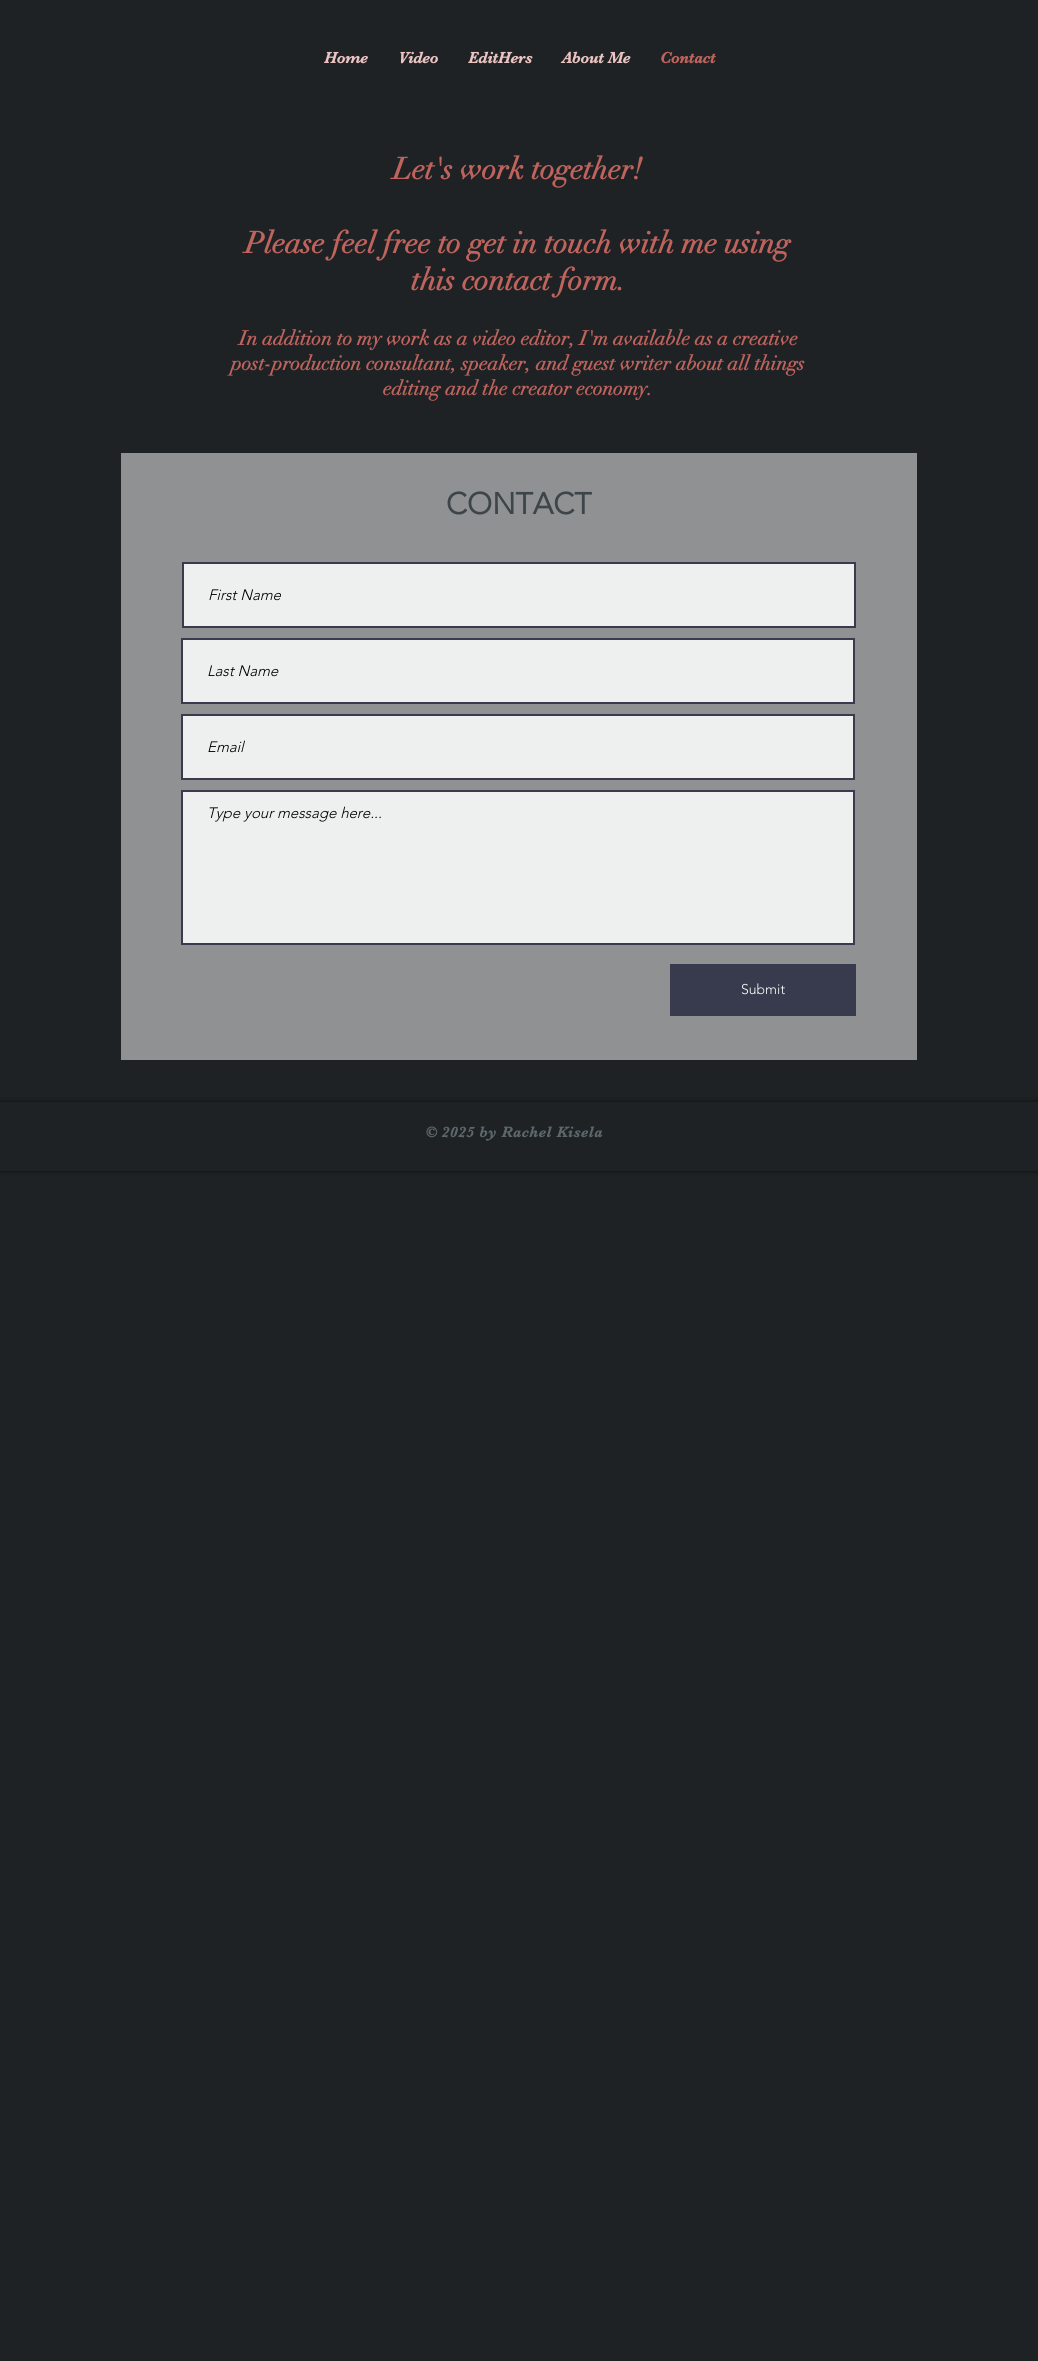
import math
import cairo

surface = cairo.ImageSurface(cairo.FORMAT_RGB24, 1038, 2361)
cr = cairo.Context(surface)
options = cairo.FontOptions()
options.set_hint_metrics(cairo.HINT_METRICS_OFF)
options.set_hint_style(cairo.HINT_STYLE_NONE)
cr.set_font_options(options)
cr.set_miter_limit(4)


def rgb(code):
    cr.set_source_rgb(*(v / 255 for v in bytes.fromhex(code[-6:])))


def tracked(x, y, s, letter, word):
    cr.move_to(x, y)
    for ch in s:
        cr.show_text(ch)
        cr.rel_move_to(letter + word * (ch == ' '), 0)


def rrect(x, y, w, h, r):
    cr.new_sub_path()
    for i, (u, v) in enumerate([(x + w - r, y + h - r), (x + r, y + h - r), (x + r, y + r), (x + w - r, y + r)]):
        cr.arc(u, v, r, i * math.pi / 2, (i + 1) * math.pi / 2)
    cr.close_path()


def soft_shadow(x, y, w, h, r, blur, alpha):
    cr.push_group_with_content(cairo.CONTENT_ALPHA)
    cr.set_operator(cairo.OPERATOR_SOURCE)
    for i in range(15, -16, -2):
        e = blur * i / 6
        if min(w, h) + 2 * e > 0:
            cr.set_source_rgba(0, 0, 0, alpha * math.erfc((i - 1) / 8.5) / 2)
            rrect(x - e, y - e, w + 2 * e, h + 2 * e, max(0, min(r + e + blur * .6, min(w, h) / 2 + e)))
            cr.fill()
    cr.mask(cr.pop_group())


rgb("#1f2224")
cr.paint()
rgb("#8f9192")
cr.rectangle(121, 453, 796, 607)
cr.fill()
rgb("#eeefef")
cr.rectangle(183, 563, 672, 64)
cr.fill_preserve()
rgb("#373b4d")
cr.stroke()
rgb("#eeefef")
cr.rectangle(182, 639, 672, 64)
cr.fill_preserve()
rgb("#373b4d")
cr.stroke()
rgb("#eeefef")
cr.rectangle(182, 715, 672, 64)
cr.fill_preserve()
rgb("#373b4d")
cr.stroke()
rgb("#eeefef")
cr.rectangle(182, 791, 672, 153)
cr.fill_preserve()
rgb("#373b4d")
cr.stroke()
cr.rectangle(670, 964, 186, 52)
cr.fill()
cr.save()
cr.set_fill_rule(cairo.FILL_RULE_EVEN_ODD)
cr.new_path()
cr.move_to(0, 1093)
cr.line_to(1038, 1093)
cr.line_to(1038, 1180)
cr.line_to(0, 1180)
cr.close_path()
cr.move_to(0, 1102)
cr.line_to(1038, 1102)
cr.line_to(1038, 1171)
cr.line_to(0, 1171)
cr.close_path()
cr.clip()
rgb("#000000")
soft_shadow(0, 1102, 1038, 69, 0, 2.5, 0.7)
cr.restore()
cr.select_font_face("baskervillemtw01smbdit", cairo.FONT_SLANT_NORMAL, cairo.FONT_WEIGHT_BOLD)
cr.set_font_size(16)
rgb("#eac4c2")
for x, y, s in [
    (324, 63, "Home"),
    (398, 63, "Video"),
    (468, 63, "EditHers"),
    (562, 63, "About Me"),
]:
    cr.move_to(x, y)
    cr.show_text(s)
rgb("#bf635d")
cr.move_to(660, 63)
cr.show_text("Contact")
cr.select_font_face("didot", cairo.FONT_SLANT_NORMAL, cairo.FONT_WEIGHT_BOLD)
cr.set_font_size(30)
for x, y, s in [
    (393, 179, "Let's work together!"),
    (245, 253, "Please feel free to get in touch with me using"),
    (411, 290, "this contact form."),
]:
    cr.move_to(x, y)
    cr.show_text(s)
cr.set_font_size(20)
for x, y, s in [
    (239, 345, "In addition to my work as a video editor, I'm available as a creative"),
    (231, 370, "post-production consultant, speaker, and guest writer about all things"),
    (383, 395, "editing and the creator economy."),
]:
    cr.move_to(x, y)
    cr.show_text(s)
cr.select_font_face("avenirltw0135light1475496", cairo.FONT_SLANT_NORMAL, cairo.FONT_WEIGHT_BOLD)
cr.set_font_size(30)
rgb("#3d4548")
cr.move_to(446, 514)
cr.show_text("CONTACT")
cr.select_font_face("avenirltw0135light1475496 Light", cairo.FONT_SLANT_ITALIC)
cr.set_font_size(15)
rgb("#000000")
for x, y, s in [
    (208, 600, "First Name"),
    (207, 676, "Last Name"),
    (207, 752, "Email"),
    (207, 818, "Type your message here..."),
]:
    cr.move_to(x, y)
    cr.show_text(s)
cr.select_font_face("avenirltw0135light1475496 Light")
cr.set_font_size(14)
rgb("#ffffff")
cr.move_to(741, 994)
cr.show_text("Submit")
cr.select_font_face("baskervillemtw01smbdit", cairo.FONT_SLANT_NORMAL, cairo.FONT_WEIGHT_BOLD)
cr.set_font_size(15)
rgb("#5c676c")
tracked(426, 1137, "© 2025 by Rachel Kisela", 0.75, 0)
surface.write_to_png("page.png")
